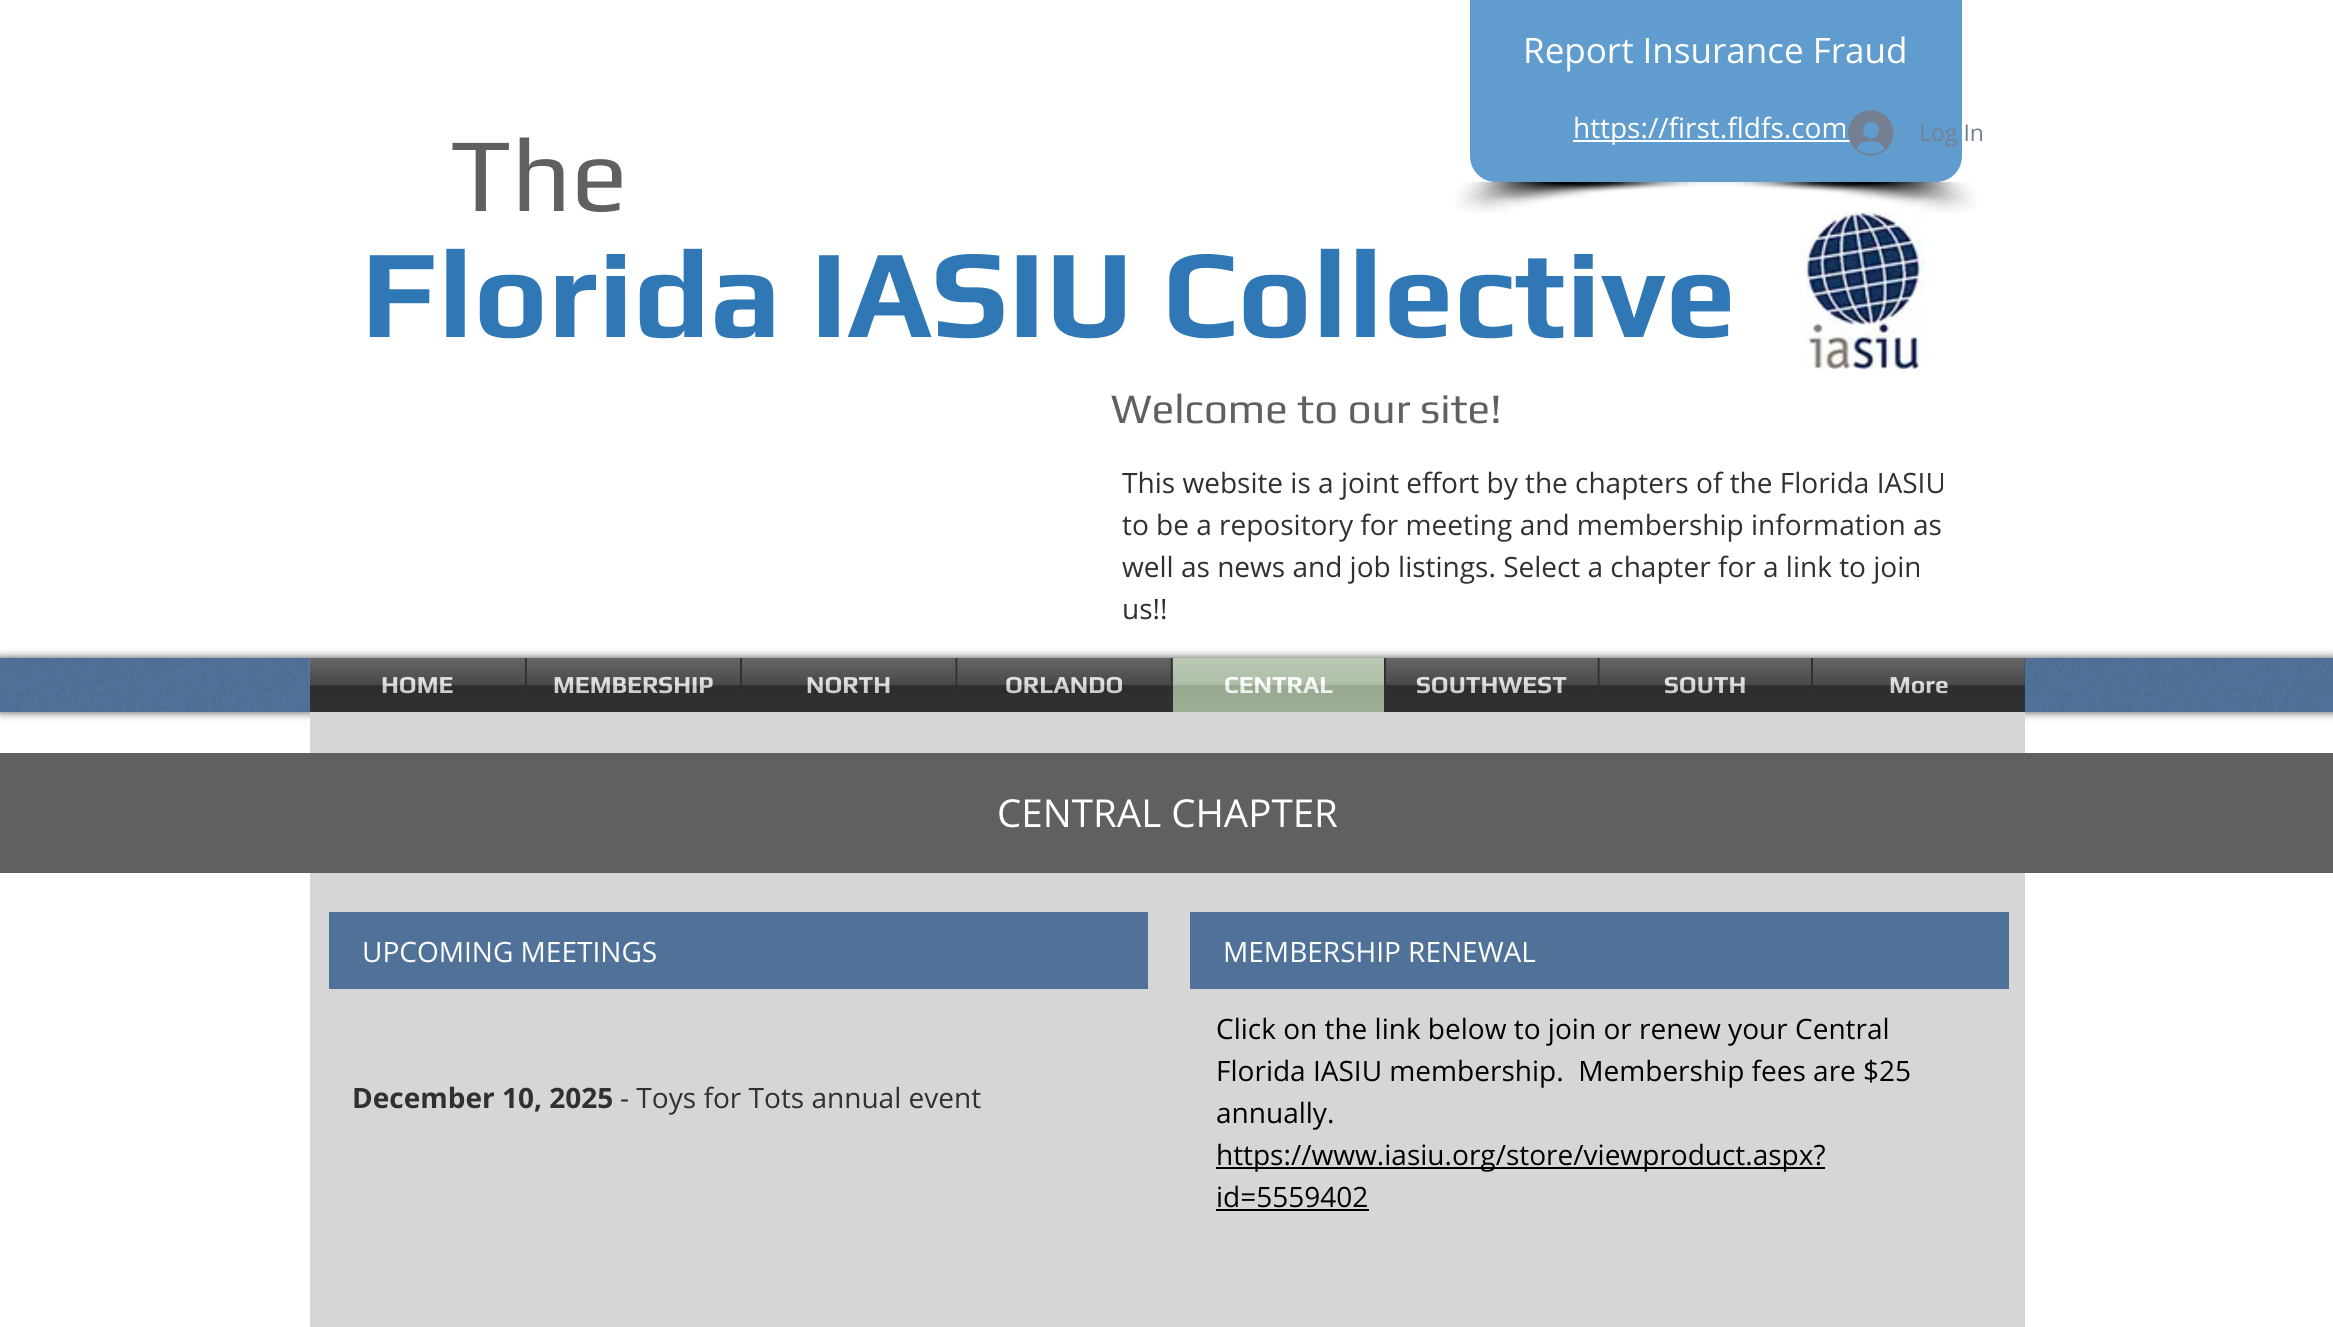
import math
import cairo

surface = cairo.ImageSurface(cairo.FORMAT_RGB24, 2333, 1327)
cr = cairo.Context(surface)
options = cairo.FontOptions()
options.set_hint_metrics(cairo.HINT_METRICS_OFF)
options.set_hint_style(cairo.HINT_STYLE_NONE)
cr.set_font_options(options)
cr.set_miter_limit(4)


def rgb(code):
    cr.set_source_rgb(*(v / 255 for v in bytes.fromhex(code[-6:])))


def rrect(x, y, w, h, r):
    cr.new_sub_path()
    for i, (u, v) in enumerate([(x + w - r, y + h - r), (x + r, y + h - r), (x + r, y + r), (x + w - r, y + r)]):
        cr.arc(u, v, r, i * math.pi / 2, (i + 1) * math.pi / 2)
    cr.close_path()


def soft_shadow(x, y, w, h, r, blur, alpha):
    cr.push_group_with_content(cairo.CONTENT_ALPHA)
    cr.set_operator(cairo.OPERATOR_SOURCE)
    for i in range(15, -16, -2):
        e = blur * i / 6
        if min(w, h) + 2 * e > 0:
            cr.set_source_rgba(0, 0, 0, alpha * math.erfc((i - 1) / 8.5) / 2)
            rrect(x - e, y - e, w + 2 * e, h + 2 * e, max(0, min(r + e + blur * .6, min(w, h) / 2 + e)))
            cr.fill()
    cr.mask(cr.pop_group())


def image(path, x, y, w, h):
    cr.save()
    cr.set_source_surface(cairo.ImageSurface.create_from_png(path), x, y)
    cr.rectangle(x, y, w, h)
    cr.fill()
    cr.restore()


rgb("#ffffff")
cr.paint()
rgb("#609cce")
cr.new_path()
cr.move_to(1470, 0)
cr.line_to(1962, 0)
cr.line_to(1962, 156)
cr.curve_to(1962, 170.5, 1950.5, 182, 1936, 182)
cr.line_to(1496, 182)
cr.curve_to(1481.5, 182, 1470, 170.5, 1470, 156)
cr.close_path()
cr.fill()
rgb("#ffffff")
cr.rectangle(1573, 140, 284, 2)
cr.fill()
image("img/1.png", 1455, 182, 268, 31)
image("img/2.png", 1708, 182, 269, 31)
image("img/3.png", 1848, 110, 46, 46)
image("img/4.png", 1799, 212, 127, 158)
rgb("#000000")
soft_shadow(0, 658, 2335, 54, 0, 4.5, 0.7)
rgb("#507299")
cr.rectangle(0, 658, 2333, 54)
cr.fill()
image("img/5.png", 0, 658, 2333, 54)
image("img/6.png", 309, 658, 1, 27)
for x, y, w, h, color in [
    (310, 658, 863, 54, "#303030"),
    (1173, 658, 211, 54, "#a3b59a"),
    (1384, 658, 641, 54, "#303030"),
    (310, 712, 1715, 615, "#d6d6d6"),
    (0, 753, 2333, 120, "#606060"),
    (329, 912, 819, 77, "#507299"),
    (1190, 912, 819, 77, "#507299"),
    (1216, 1167, 609, 2, "#000000"),
    (1216, 1209, 153, 2, "#000000"),
]:
    rgb(color)
    cr.rectangle(x, y, w, h)
    cr.fill()
cr.select_font_face("Play")
cr.set_font_size(105)
rgb("#606060")
cr.move_to(450, 211)
cr.show_text("The")
cr.select_font_face("Open Sans")
cr.set_font_size(35)
rgb("#ffffff")
cr.move_to(1523, 63)
cr.show_text("Report Insurance Fraud")
cr.set_font_size(28)
cr.move_to(1573, 138)
cr.show_text("https://first.fldfs.com")
cr.set_font_size(23)
rgb("#748092")
cr.move_to(1919, 141)
cr.show_text("Log In")
cr.select_font_face("Play", cairo.FONT_SLANT_NORMAL, cairo.FONT_WEIGHT_BOLD)
cr.set_font_size(126)
rgb("#2f78b5")
cr.move_to(361, 337)
cr.show_text("Florida IASIU Collective")
cr.select_font_face("Play")
cr.set_font_size(42)
rgb("#606060")
cr.move_to(1111, 423)
cr.show_text("Welcome to our site!")
cr.select_font_face("Open Sans")
cr.set_font_size(28)
rgb("#303030")
for x, y, s in [
    (1122, 493, "This website is a joint effort by the chapters of the Florida IASIU"),
    (1122, 535, "to be a repository for meeting and membership information as"),
    (1122, 577, "well as news and job listings. Select a chapter for a link to join"),
    (1122, 619, "us!!"),
]:
    cr.move_to(x, y)
    cr.show_text(s)
cr.select_font_face("Play", cairo.FONT_SLANT_NORMAL, cairo.FONT_WEIGHT_BOLD)
cr.set_font_size(24.5)
rgb("#dbdbdb")
cr.move_to(381, 693)
cr.show_text("HOME")
image("img/7.png", 309, 658, 216, 36)
cr.move_to(553, 693)
cr.show_text("MEMBERSHIP")
image("img/8.png", 526, 658, 214, 36)
cr.move_to(806, 693)
cr.show_text("NORTH")
image("img/9.png", 742, 658, 214, 36)
cr.move_to(1005, 693)
cr.show_text("ORLANDO")
image("img/10.png", 957, 658, 214, 36)
rgb("#ffffff")
cr.move_to(1224, 693)
cr.show_text("CENTRAL")
image("img/11.png", 1172, 658, 212, 54)
rgb("#dbdbdb")
cr.move_to(1416, 693)
cr.show_text("SOUTHWEST")
image("img/12.png", 1386, 658, 212, 36)
cr.move_to(1664, 693)
cr.show_text("SOUTH")
image("img/13.png", 1599, 658, 212, 36)
cr.move_to(1889, 693)
cr.show_text("More")
image("img/14.png", 1813, 658, 212, 36)
cr.select_font_face("Open Sans")
cr.set_font_size(38.5)
rgb("#ffffff")
cr.move_to(997, 827)
cr.show_text("CENTRAL CHAPTER")
cr.set_font_size(28)
cr.move_to(362, 962)
cr.show_text("UPCOMING MEETINGS")
cr.move_to(1223, 962)
cr.show_text("MEMBERSHIP RENEWAL")
cr.select_font_face("Open Sans", cairo.FONT_SLANT_NORMAL, cairo.FONT_WEIGHT_BOLD)
rgb("#303030")
cr.move_to(352, 1108)
cr.show_text("December 10, 2025")
cr.select_font_face("Open Sans")
cr.move_to(620, 1108)
cr.show_text("- Toys for Tots annual event")
rgb("#000000")
for x, y, s in [
    (1216, 1039, "Click on the link below to join or renew your Central"),
    (1216, 1081, "Florida IASIU membership.  Membership fees are $25"),
    (1216, 1123, "annually."),
    (1216, 1165, "https://www.iasiu.org/store/viewproduct.aspx?"),
    (1216, 1207, "id=5559402"),
]:
    cr.move_to(x, y)
    cr.show_text(s)
surface.write_to_png("page.png")
